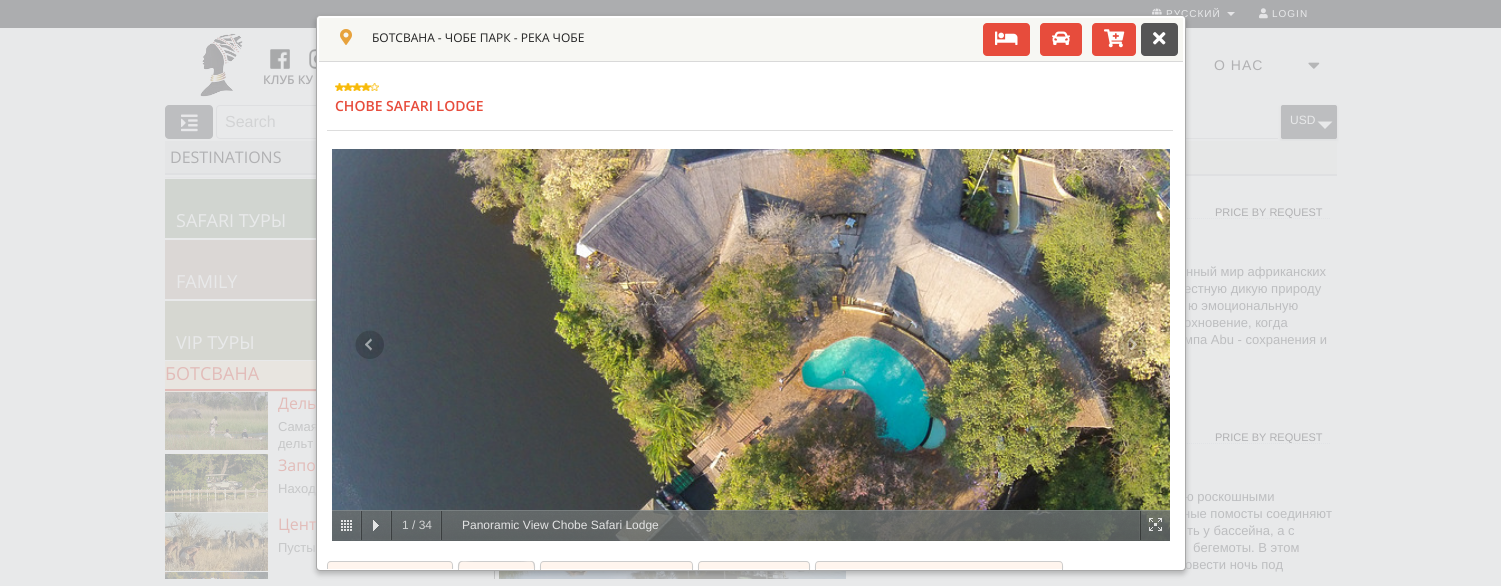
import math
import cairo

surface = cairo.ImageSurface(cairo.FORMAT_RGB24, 1501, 586)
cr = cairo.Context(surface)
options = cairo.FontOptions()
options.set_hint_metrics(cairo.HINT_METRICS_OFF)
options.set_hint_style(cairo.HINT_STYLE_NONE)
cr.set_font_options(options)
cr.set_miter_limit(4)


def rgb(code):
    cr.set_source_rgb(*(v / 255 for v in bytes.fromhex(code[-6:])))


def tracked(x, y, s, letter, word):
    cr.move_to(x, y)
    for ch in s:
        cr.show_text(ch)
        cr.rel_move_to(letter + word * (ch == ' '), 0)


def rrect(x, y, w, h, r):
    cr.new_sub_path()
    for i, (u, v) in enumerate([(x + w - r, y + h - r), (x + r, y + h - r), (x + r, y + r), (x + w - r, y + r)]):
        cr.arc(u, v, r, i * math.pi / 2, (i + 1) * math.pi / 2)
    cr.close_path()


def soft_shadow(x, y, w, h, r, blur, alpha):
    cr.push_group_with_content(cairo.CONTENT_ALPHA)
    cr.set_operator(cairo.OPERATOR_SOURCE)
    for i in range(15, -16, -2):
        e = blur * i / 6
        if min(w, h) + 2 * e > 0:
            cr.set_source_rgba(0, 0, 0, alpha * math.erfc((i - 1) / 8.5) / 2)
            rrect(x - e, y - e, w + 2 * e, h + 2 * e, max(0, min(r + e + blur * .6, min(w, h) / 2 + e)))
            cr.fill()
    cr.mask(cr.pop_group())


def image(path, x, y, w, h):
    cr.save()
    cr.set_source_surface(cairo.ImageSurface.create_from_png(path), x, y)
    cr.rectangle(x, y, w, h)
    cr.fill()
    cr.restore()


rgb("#e8e9ea")
cr.paint()
rgb("#acadaf")
cr.rectangle(0, 0, 1501, 28)
cr.fill()
image("img/1.png", 1152, 8, 10, 7)
rgb("#e4e4e6")
cr.new_path()
cr.move_to(1227, 12)
cr.line_to(1235, 12)
cr.line_to(1231, 16)
cr.close_path()
cr.fill()
image("img/2.png", 1259, 8, 9, 11)
image("img/3.png", 1308, 62, 12, 7)
image("img/4.png", 200, 33, 43, 64)
image("img/5.png", 270, 49, 20, 20)
image("img/6.png", 309, 49, 7, 20)
rgb("#bdbec0")
rrect(165, 105, 48, 34, 4)
cr.fill()
image("img/7.png", 181, 114, 17, 18)
rrect(216.5, 105.5, 278, 33, 3.5)
rgb("#dedfe1")
cr.set_line_width(1)
cr.stroke()
rgb("#dfe0e2")
cr.rectangle(1186, 138, 92, 1)
cr.fill()
cr.save()
rrect(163, 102, 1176, 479, 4)
cr.clip()
rgb("#a8a9aa")
soft_shadow(1281, 107, 56, 34, 0, 2, 0.16)
cr.restore()
rgb("#bdbec0")
rrect(1281.5, 105.5, 55, 33, 1.5)
cr.fill_preserve()
cr.stroke()
rgb("#e8e9ea")
cr.new_path()
cr.move_to(1332.5, 121.5)
cr.line_to(1325, 129)
cr.line_to(1317.5, 121.5)
cr.close_path()
cr.fill()
for x, y, w, h, color in [
    (165, 141, 151, 32, "#e4e5e6"),
    (165, 173, 151, 2, "#dfe0e2"),
    (494, 571, 1, 8, "#c6c7c8"),
    (165, 177, 151, 1, "#e5e5e7"),
    (165, 179, 151, 59, "#d1d5d0"),
    (165, 240, 151, 59, "#dbd7d5"),
    (165, 301, 151, 59, "#d6d7d1"),
    (165, 361, 151, 31, "#e8e5e0"),
    (165, 389, 151, 2, "#e2bcb9"),
]:
    rgb(color)
    cr.rectangle(x, y, w, h)
    cr.fill()
image("img/8.png", 165, 392, 103, 58)
image("img/9.png", 165, 454, 103, 58)
image("img/10.png", 165, 513, 103, 58)
image("img/11.png", 165, 572, 103, 7)
rgb("#e6e7e7")
cr.rectangle(1186, 141, 151, 33)
cr.fill()
rgb("#dfe0e2")
cr.rectangle(1186, 174, 151, 2)
cr.fill()
cr.new_path()
cr.move_to(859, 218.5)
cr.line_to(1330, 218.5)
rgb("#e1e3e6")
cr.set_dash([1, 1])
cr.stroke()
cr.new_path()
cr.move_to(859, 443.5)
cr.line_to(1330, 443.5)
cr.stroke()
image("img/12.png", 499, 571, 347, 8)
rgb("#000000")
soft_shadow(316, 18, 870, 556, 4, 3, 0.24)
cr.select_font_face("Liberation Sans")
cr.set_font_size(10)
rgb("#e8e9ea")
tracked(1166, 17, "РУССКИЙ", 1, 0)
tracked(1272, 17, "LOGIN", 1, 0)
cr.set_font_size(14)
rgb("#b1b1b3")
tracked(1214, 70, "О НАС", 1, 0)
cr.select_font_face("Open Sans SemiBold")
cr.set_font_size(12)
cr.move_to(263, 84)
cr.show_text("КЛУБ КУ")
cr.select_font_face("Liberation Sans")
cr.set_font_size(16)
rgb("#d2d3d4")
cr.move_to(225, 127)
cr.show_text("Search")
cr.set_font_size(12)
rgb("#e8e9ea")
cr.move_to(1290, 124)
cr.show_text("USD")
cr.select_font_face("Open Sans")
cr.set_font_size(16)
rgb("#b1b1b3")
cr.move_to(170, 163)
cr.show_text("DESTINATIONS")
cr.set_font_size(18)
rgb("#e8e9ea")
for x, y, s in [
    (176, 227, "SAFARI ТУРЫ"),
    (176, 288, "FAMILY"),
    (176, 349, "VIP ТУРЫ"),
]:
    cr.move_to(x, y)
    cr.show_text(s)
rgb("#e2bcb9")
cr.move_to(165, 380)
cr.show_text("БОТСВАНА")
cr.set_font_size(16)
cr.move_to(278, 409)
cr.show_text("Дель")
cr.select_font_face("Liberation Sans")
cr.set_font_size(13)
rgb("#c6c7c8")
cr.move_to(278, 431)
cr.show_text("Самая")
cr.move_to(278, 448)
cr.show_text("дельт")
cr.select_font_face("Open Sans")
cr.set_font_size(16)
rgb("#e2bcb9")
cr.move_to(278, 471)
cr.show_text("Запо")
cr.select_font_face("Liberation Sans")
cr.set_font_size(13)
rgb("#c6c7c8")
cr.move_to(278, 493)
cr.show_text("Наход")
cr.select_font_face("Open Sans")
cr.set_font_size(16)
rgb("#e2bcb9")
cr.move_to(278, 530)
cr.show_text("Цент")
cr.select_font_face("Liberation Sans")
cr.set_font_size(13)
rgb("#c6c7c8")
cr.move_to(278, 552)
cr.show_text("Пусты")
cr.set_font_size(11)
rgb("#b1b1b3")
cr.move_to(1215, 216)
cr.show_text("PRICE BY REQUEST")
cr.set_font_size(13)
rgb("#bdbec0")
for x, y, s in [
    (1186, 276, "нный мир африканских"),
    (1184, 293, "естную дикую природу"),
    (1188, 310, "ю эмоциональную"),
    (1184, 327, "охновение, когда"),
    (1184, 344, "мпа Abu - сохранения и"),
]:
    cr.move_to(x, y)
    cr.show_text(s)
cr.set_font_size(11)
rgb("#b1b1b3")
cr.move_to(1215, 441)
cr.show_text("PRICE BY REQUEST")
cr.set_font_size(13)
rgb("#bdbec0")
for x, y, s in [
    (1184, 501, "ю роскошными"),
    (1183, 518, "ные помосты соединяют"),
    (1187, 535, "ть у бассейна, а с"),
    (1193, 552, "бегемоты. В этом"),
    (1185, 569, "овести ночь под"),
]:
    cr.move_to(x, y)
    cr.show_text(s)
rgb("#ffffff")
rrect(316.5, 15.5, 869, 555, 3.5)
cr.fill_preserve()
rgb("#a8a8a8")
cr.set_dash([])
cr.stroke()
rgb("#f7f7f3")
cr.rectangle(319, 18, 864, 43)
cr.fill()
rgb("#d9d9d9")
cr.rectangle(319, 61, 864, 1)
cr.fill()
image("img/13.png", 340, 29, 12, 16)
cr.select_font_face("Open Sans")
cr.set_font_size(12)
rgb("#222222")
cr.move_to(372, 42)
cr.show_text("БОТСВАНА - ЧОБЕ ПАРК - РЕКА ЧОБЕ")
rgb("#e74c3c")
rrect(983, 23, 47, 33, 4)
cr.fill()
image("img/14.png", 995, 31, 23, 14)
rrect(1040, 23, 42, 33, 4)
cr.fill()
image("img/15.png", 1052, 31, 18, 14)
rrect(1092, 23, 44, 33, 4)
cr.fill()
image("img/16.png", 1104, 29, 21, 19)
rgb("#555555")
rrect(1141, 23, 37, 33, 4)
cr.fill()
image("img/17.png", 1153, 32, 13, 13)
rgb("#dddddd")
cr.rectangle(327, 130, 846, 1)
cr.fill()
image("img/18.png", 335, 83, 44, 8)
cr.select_font_face("Open Sans SemiBold")
cr.set_font_size(14)
rgb("#e74c3c")
cr.move_to(335, 111)
cr.show_text("CHOBE SAFARI LODGE")
image("img/19.png", 332, 149, 838, 392)
image("img/20.png", 355, 330, 29, 29)
image("img/21.png", 1118, 330, 29, 29)
cr.set_source_rgba(0.518, 0.541, 0.541, 0.82)
cr.rectangle(332, 510, 838, 31)
cr.fill()
image("img/22.png", 332, 511, 838, 30)
image("img/23.png", 341, 520, 11, 11)
image("img/24.png", 360, 511, 2, 29)
image("img/25.png", 373, 520, 6, 11)
image("img/26.png", 390, 511, 2, 29)
image("img/27.png", 440, 511, 2, 29)
cr.select_font_face("Liberation Sans")
cr.set_font_size(12)
rgb("#d2d3d4")
cr.move_to(402, 529)
cr.show_text("1 / 34")
rgb("#e3e4e4")
cr.move_to(462, 529)
cr.show_text("Panoramic View Chobe Safari Lodge")
image("img/28.png", 1139, 511, 2, 29)
image("img/29.png", 1149, 518, 13, 13)
rgb("#fff5ee")
cr.new_path()
cr.move_to(331, 561)
cr.line_to(449, 561)
cr.curve_to(451, 561, 453, 563, 453, 565)
cr.line_to(453, 569)
cr.line_to(327, 569)
cr.line_to(327, 565)
cr.curve_to(327, 563, 329, 561, 331, 561)
cr.close_path()
cr.fill()
cr.save()
cr.rectangle(327, 561, 848, 8)
cr.clip()
rgb("#cccccc")
cr.new_path()
cr.move_to(331, 561)
cr.curve_to(326, 561, 327, 567, 327, 570)
cr.line_to(328, 570)
cr.line_to(328, 565)
cr.curve_to(328, 563, 329, 562, 331, 562)
cr.line_to(449, 562)
cr.curve_to(451, 562, 452, 563, 452, 565)
cr.line_to(452, 570)
cr.line_to(453, 570)
cr.curve_to(453, 567, 454, 561, 449, 561)
cr.close_path()
cr.fill()
cr.restore()
cr.new_path()
cr.move_to(462, 561)
cr.line_to(531, 561)
cr.curve_to(533, 561, 535, 563, 535, 565)
cr.line_to(535, 569)
cr.line_to(458, 569)
cr.line_to(458, 565)
cr.curve_to(458, 563, 460, 561, 462, 561)
cr.close_path()
cr.fill()
rgb("#cccccc")
cr.new_path()
cr.move_to(462, 561)
cr.curve_to(457, 561, 458, 567, 458, 570)
cr.line_to(459, 570)
cr.curve_to(459, 559, 461, 562, 474, 562)
cr.line_to(520, 562)
cr.curve_to(532, 562, 534, 559, 534, 570)
cr.line_to(535, 570)
cr.curve_to(535, 567, 536, 561, 531, 561)
cr.close_path()
cr.fill()
rgb("#fff5ee")
cr.new_path()
cr.move_to(544, 561)
cr.line_to(689, 561)
cr.curve_to(691, 561, 693, 563, 693, 565)
cr.line_to(693, 569)
cr.line_to(540, 569)
cr.line_to(540, 565)
cr.curve_to(540, 563, 542, 561, 544, 561)
cr.close_path()
cr.fill()
rgb("#cccccc")
cr.new_path()
cr.move_to(544, 561)
cr.curve_to(539, 561, 540, 567, 540, 570)
cr.line_to(541, 570)
cr.line_to(541, 565)
cr.curve_to(541, 563, 542, 562, 544, 562)
cr.line_to(689, 562)
cr.curve_to(691, 562, 692, 563, 692, 565)
cr.line_to(692, 570)
cr.line_to(693, 570)
cr.curve_to(693, 567, 694, 561, 689, 561)
cr.close_path()
cr.fill()
rgb("#fff5ee")
cr.new_path()
cr.move_to(702, 561)
cr.line_to(806, 561)
cr.curve_to(808, 561, 810, 563, 810, 565)
cr.line_to(810, 569)
cr.line_to(698, 569)
cr.line_to(698, 565)
cr.curve_to(698, 563, 700, 561, 702, 561)
cr.close_path()
cr.fill()
rgb("#cccccc")
cr.new_path()
cr.move_to(702, 561)
cr.curve_to(697, 561, 698, 567, 698, 570)
cr.line_to(699, 570)
cr.line_to(699, 565)
cr.curve_to(699, 563, 700, 562, 702, 562)
cr.line_to(806, 562)
cr.curve_to(808, 562, 809, 563, 809, 565)
cr.line_to(809, 570)
cr.line_to(810, 570)
cr.curve_to(810, 567, 811, 561, 806, 561)
cr.close_path()
cr.fill()
rgb("#fff5ee")
cr.new_path()
cr.move_to(819, 561)
cr.line_to(1059, 561)
cr.curve_to(1061, 561, 1063, 563, 1063, 565)
cr.line_to(1063, 569)
cr.line_to(815, 569)
cr.line_to(815, 565)
cr.curve_to(815, 563, 817, 561, 819, 561)
cr.close_path()
cr.fill()
rgb("#cccccc")
cr.new_path()
cr.move_to(819, 561)
cr.curve_to(814, 561, 815, 567, 815, 570)
cr.line_to(816, 570)
cr.line_to(816, 565)
cr.curve_to(816, 563, 817, 562, 819, 562)
cr.line_to(1059, 562)
cr.curve_to(1061, 562, 1062, 563, 1062, 565)
cr.line_to(1062, 570)
cr.line_to(1063, 570)
cr.curve_to(1063, 567, 1064, 561, 1059, 561)
cr.close_path()
cr.fill()
surface.write_to_png("page.png")
